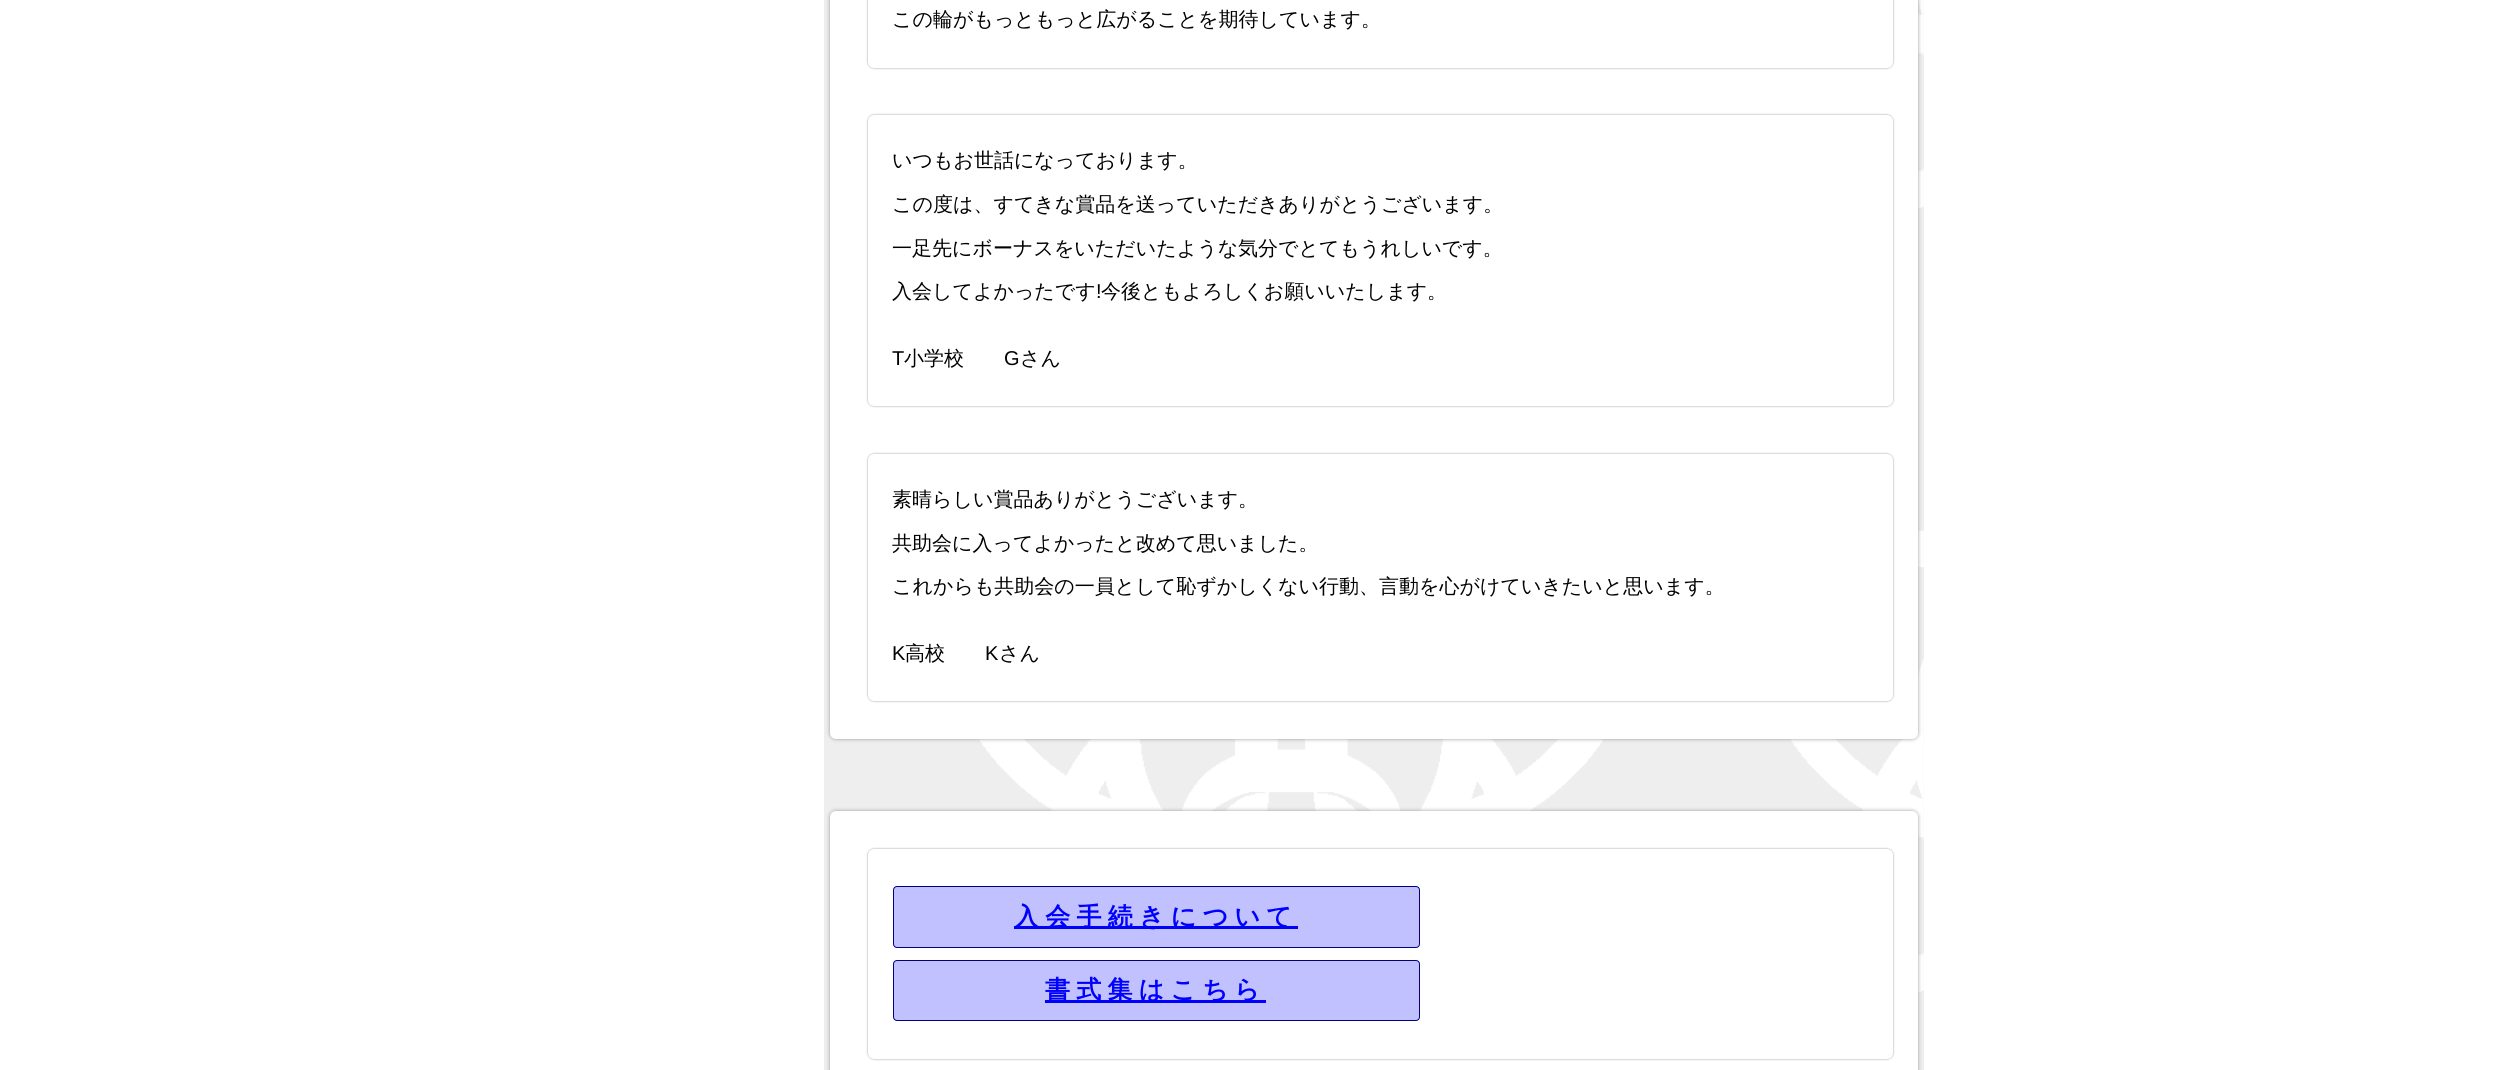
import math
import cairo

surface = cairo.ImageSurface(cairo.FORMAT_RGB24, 2496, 1070)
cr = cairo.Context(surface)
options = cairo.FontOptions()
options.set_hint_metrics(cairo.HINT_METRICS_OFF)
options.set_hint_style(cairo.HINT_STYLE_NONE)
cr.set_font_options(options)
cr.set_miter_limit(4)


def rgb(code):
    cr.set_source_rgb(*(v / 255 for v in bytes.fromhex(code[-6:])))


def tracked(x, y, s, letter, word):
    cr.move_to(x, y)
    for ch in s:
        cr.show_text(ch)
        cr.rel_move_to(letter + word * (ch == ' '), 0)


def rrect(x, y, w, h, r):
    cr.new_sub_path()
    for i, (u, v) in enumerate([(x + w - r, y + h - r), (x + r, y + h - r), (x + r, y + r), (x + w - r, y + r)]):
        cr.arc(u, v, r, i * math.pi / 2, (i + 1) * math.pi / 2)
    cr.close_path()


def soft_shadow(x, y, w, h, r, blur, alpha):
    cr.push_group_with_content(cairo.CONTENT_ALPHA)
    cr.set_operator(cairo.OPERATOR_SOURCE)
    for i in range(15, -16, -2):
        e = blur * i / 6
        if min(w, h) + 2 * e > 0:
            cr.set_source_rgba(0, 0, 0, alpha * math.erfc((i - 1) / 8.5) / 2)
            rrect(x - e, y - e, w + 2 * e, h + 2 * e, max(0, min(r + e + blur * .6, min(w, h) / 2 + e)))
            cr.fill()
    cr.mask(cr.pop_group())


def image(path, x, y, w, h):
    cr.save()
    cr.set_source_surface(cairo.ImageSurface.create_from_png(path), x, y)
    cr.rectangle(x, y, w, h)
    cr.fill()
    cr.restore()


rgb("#ffffff")
cr.paint()
rgb("#eeeeee")
cr.rectangle(824, 0, 1100, 1070)
cr.fill()
image("img/1.png", 978, 0, 946, 993)
rgb("#999999")
soft_shadow(830, -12, 1088, 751, 6, 2, 1)
rgb("#ffffff")
rrect(830, -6, 1088, 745, 6)
cr.fill()
rgb("#999999")
soft_shadow(868, -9, 1025, 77, 6, 1, 1)
rgb("#ffffff")
rrect(868, -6, 1025, 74, 6)
cr.fill()
rgb("#999999")
soft_shadow(868, 115, 1025, 291, 6, 1, 1)
rgb("#ffffff")
rrect(868, 115, 1025, 291, 6)
cr.fill()
rgb("#999999")
soft_shadow(868, 454, 1025, 247, 6, 1, 1)
rgb("#ffffff")
rrect(868, 454, 1025, 247, 6)
cr.fill()
rgb("#999999")
soft_shadow(830, 811, 1088, 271, 6, 2, 1)
rgb("#ffffff")
rrect(830, 811, 1088, 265, 6)
cr.fill()
rgb("#999999")
soft_shadow(868, 849, 1025, 210, 6, 1, 1)
rgb("#ffffff")
rrect(868, 849, 1025, 210, 6)
cr.fill()
rgb("#c1c1ff")
rrect(893.5, 886.5, 526, 61, 3.5)
cr.fill_preserve()
rgb("#000080")
cr.set_line_width(1)
cr.stroke()
rgb("#0000ff")
cr.rectangle(1014, 926, 284, 3)
cr.fill()
rgb("#c1c1ff")
rrect(893.5, 960.5, 526, 60, 3.5)
cr.fill_preserve()
rgb("#000080")
cr.stroke()
rgb("#0000ff")
cr.rectangle(1045, 1000, 221, 3)
cr.fill()
cr.select_font_face("WenQuanYi Zen Hei Medium")
cr.set_font_size(20)
rgb("#000000")
for x, y, s in [
    (892, 26, "この輪がもっともっと広がることを期待しています。"),
    (892, 167, "いつもお世話になっております。"),
    (892, 211, "この度は、すてきな賞品を送っていただきありがとうございます。"),
    (892, 255, "一足先にボーナスをいただいたような気分でとてもうれしいです。"),
    (892, 298, "入会してよかったです"),
]:
    cr.move_to(x, y)
    cr.show_text(s)
cr.select_font_face("Liberation Sans")
cr.move_to(1096, 298)
cr.show_text("!")
cr.select_font_face("WenQuanYi Zen Hei Medium")
cr.move_to(1101, 298)
cr.show_text("今後ともよろしくお願いいたします。")
cr.select_font_face("Liberation Sans")
cr.move_to(892, 365)
cr.show_text("T")
cr.select_font_face("WenQuanYi Zen Hei Medium")
cr.move_to(904, 365)
cr.show_text("小学校")
cr.select_font_face("Liberation Sans")
cr.move_to(1004, 365)
cr.show_text("G")
cr.select_font_face("WenQuanYi Zen Hei Medium")
for x, y, s in [
    (1020, 365, "さん"),
    (892, 506, "素晴らしい賞品ありがとうございます。"),
    (892, 550, "共助会に入ってよかったと改めて思いました。"),
    (892, 593, "これからも共助会の一員として恥ずかしくない行動、言動を心がけていきたいと思います。"),
]:
    cr.move_to(x, y)
    cr.show_text(s)
cr.select_font_face("Liberation Sans")
cr.move_to(892, 660)
cr.show_text("K")
cr.select_font_face("WenQuanYi Zen Hei Medium")
cr.move_to(905, 660)
cr.show_text("高校")
cr.select_font_face("Liberation Sans")
cr.move_to(985, 660)
cr.show_text("K")
cr.select_font_face("WenQuanYi Zen Hei Medium")
cr.move_to(999, 660)
cr.show_text("さん")
cr.select_font_face("WenQuanYi Zen Hei", cairo.FONT_SLANT_NORMAL, cairo.FONT_WEIGHT_BOLD)
cr.set_font_size(25)
rgb("#0000ff")
tracked(1014, 925, "入会手続きについて", 6.25, 0)
tracked(1045, 998, "書式集はこちら", 6.25, 0)
surface.write_to_png("page.png")
